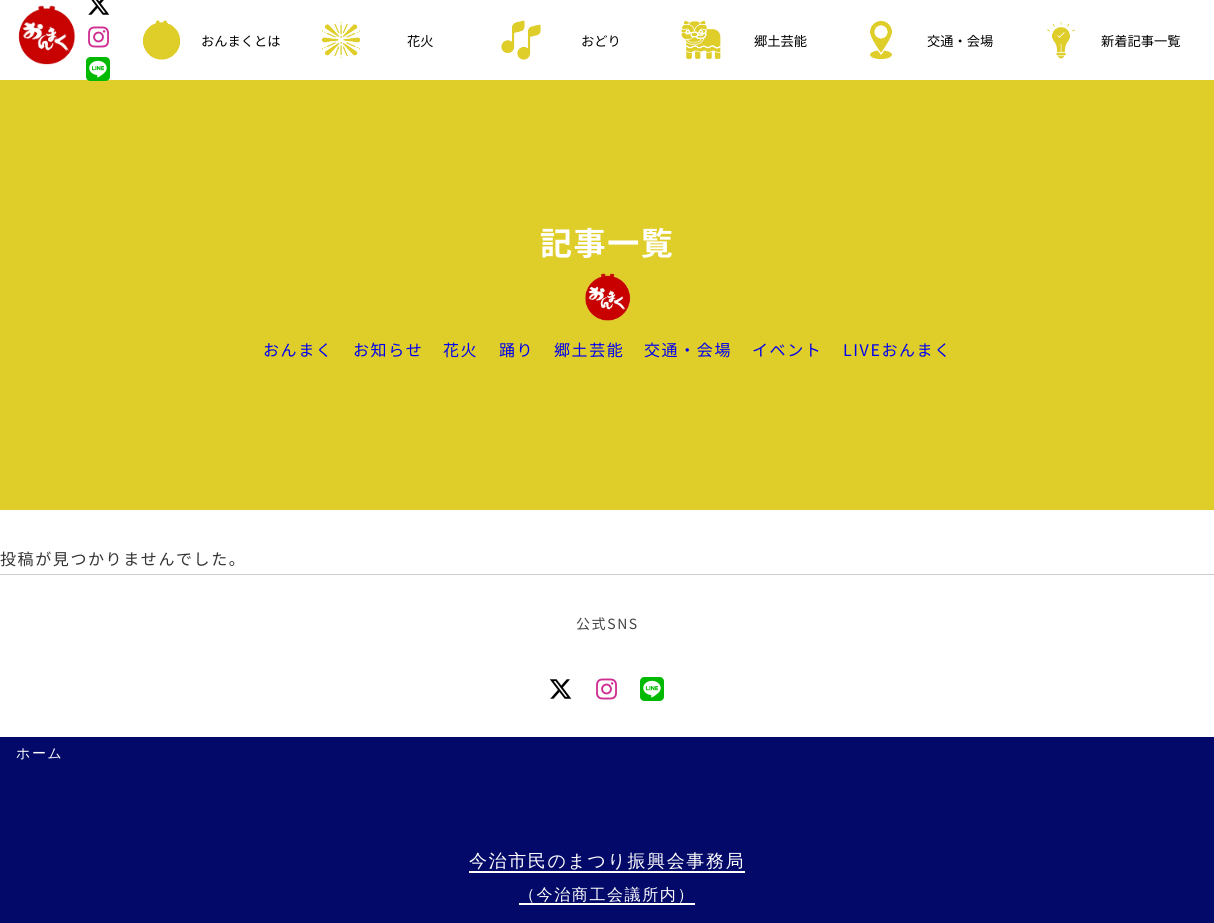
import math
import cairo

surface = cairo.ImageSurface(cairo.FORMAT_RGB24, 1214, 923)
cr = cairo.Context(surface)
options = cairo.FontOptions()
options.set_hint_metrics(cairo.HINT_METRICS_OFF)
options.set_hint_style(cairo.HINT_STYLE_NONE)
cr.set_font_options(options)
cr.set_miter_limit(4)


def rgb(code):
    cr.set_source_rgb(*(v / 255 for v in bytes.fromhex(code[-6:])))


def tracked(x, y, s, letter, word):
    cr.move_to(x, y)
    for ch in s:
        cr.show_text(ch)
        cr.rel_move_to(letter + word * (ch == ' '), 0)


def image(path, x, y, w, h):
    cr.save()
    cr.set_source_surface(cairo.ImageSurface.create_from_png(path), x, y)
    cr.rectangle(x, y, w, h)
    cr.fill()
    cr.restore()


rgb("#ffffff")
cr.paint()
image("img/1.png", 18, 5, 58, 60)
image("img/2.png", 88, 0, 22, 15)
image("img/3.png", 88, 26, 21, 22)
rgb("#dfcd2a")
cr.rectangle(0, 80, 1214, 430)
cr.fill()
image("img/4.png", 86, 57, 24, 24)
image("img/5.png", 143, 20, 37, 40)
image("img/6.png", 321, 22, 40, 36)
image("img/7.png", 501, 20, 40, 40)
image("img/8.png", 681, 20, 40, 39)
image("img/9.png", 870, 20, 22, 40)
image("img/10.png", 1047, 21, 28, 38)
image("img/11.png", 585, 273, 46, 48)
rgb("#cccccc")
cr.rectangle(0, 574, 1214, 1)
cr.fill()
image("img/12.png", 549, 679, 23, 20)
image("img/3.png", 596, 678, 21, 22)
image("img/13.png", 640, 677, 24, 24)
for x, y, w, h, color in [
    (0, 737, 1214, 186, "#030968"),
    (469, 871, 276, 2, "#ffffff"),
    (519, 903, 176, 2, "#ffffff"),
]:
    rgb(color)
    cr.rectangle(x, y, w, h)
    cr.fill()
cr.select_font_face("Noto Sans JP")
cr.set_font_size(13.25)
rgb("#000000")
for x, y, s in [
    (201, 46, "おんまくとは"),
    (407, 46, "花火"),
    (581, 46, "おどり"),
    (754, 46, "郷土芸能"),
    (927, 46, "交通・会場"),
    (1101, 46, "新着記事一覧"),
]:
    cr.move_to(x, y)
    cr.show_text(s)
cr.select_font_face("Noto Sans JP", cairo.FONT_SLANT_NORMAL, cairo.FONT_WEIGHT_BOLD)
cr.set_font_size(32)
rgb("#ffffff")
tracked(540, 255, "記事一覧", 1.6, 0)
cr.select_font_face("Noto Sans JP")
cr.set_font_size(16)
rgb("#0000ee")
for x, y, s in [
    (263, 356, "おんまく"),
    (353, 356, "お知らせ"),
    (443, 356, "花火"),
    (499, 356, "踊り"),
    (554, 356, "郷土芸能"),
    (644, 356, "交通・会場"),
    (752, 356, "イベント"),
    (843, 356, "LIVEおんまく"),
]:
    tracked(x, y, s, 1.6, 0)
rgb("#333333")
tracked(0, 565, "投稿が見つかりませんでした。", 1.6, 0)
cr.set_font_size(14)
rgb("#444444")
tracked(576, 629, "公式SNS", 1.6, 0)
cr.select_font_face("WenQuanYi Zen Hei Medium")
rgb("#ffffff")
tracked(16, 758, "ホーム", 1.6, 0)
cr.set_font_size(18)
tracked(469, 867, "今治市民のまつり振興会事務局", 1.6, 0)
cr.set_font_size(16)
tracked(519, 900, "（今治商工会議所内）", 1.6, 0)
surface.write_to_png("page.png")
